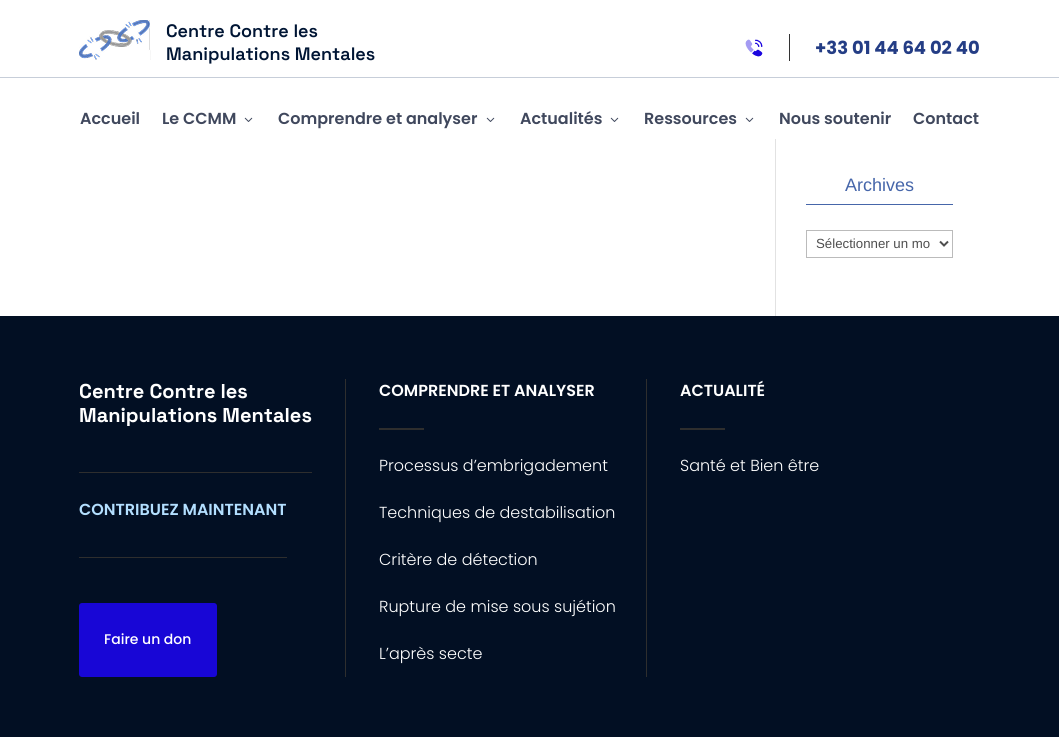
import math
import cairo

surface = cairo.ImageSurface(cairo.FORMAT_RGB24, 1059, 737)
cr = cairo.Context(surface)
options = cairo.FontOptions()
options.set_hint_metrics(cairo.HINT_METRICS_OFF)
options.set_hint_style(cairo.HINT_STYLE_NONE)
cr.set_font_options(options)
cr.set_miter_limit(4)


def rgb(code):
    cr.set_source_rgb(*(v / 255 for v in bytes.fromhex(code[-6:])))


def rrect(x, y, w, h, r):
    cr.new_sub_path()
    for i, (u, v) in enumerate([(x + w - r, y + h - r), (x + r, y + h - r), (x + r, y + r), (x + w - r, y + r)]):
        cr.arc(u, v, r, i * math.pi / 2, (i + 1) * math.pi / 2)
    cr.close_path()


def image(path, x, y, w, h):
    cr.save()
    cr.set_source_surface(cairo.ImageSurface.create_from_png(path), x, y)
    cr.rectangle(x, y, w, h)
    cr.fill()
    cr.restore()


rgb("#ffffff")
cr.paint()
image("img/1.png", 79, 20, 72, 40)
image("img/2.png", 745, 39, 18, 18)
rgb("#333333")
cr.rectangle(789, 34, 1, 27)
cr.fill()
rgb("#c7ced9")
cr.rectangle(0, 77, 1059, 1)
cr.fill()
image("img/3.png", 244, 117, 9, 5)
image("img/3.png", 486, 117, 9, 5)
image("img/3.png", 610, 117, 9, 5)
image("img/3.png", 745, 117, 9, 5)
rgb("#e2e2e2")
cr.rectangle(775, 139, 1, 177)
cr.fill()
rgb("#4666aa")
cr.rectangle(806, 204, 147, 1)
cr.fill()
cr.rectangle(806.5, 230.5, 146, 27)
rgb("#bbbbbb")
cr.set_line_width(1)
cr.stroke()
cr.new_path()
cr.move_to(940, 241.5)
cr.line_to(944, 245.5)
cr.line_to(948, 241.5)
rgb("#4e4e4e")
cr.set_line_width(2)
cr.stroke()
for x, y, w, h, color in [
    (0, 316, 1059, 421, "#020f23"),
    (345, 379, 1, 298, "#2e2e2e"),
    (79, 472, 233, 1, "#2e2e2e"),
    (79, 557, 208, 1, "#2e2e2e"),
]:
    rgb(color)
    cr.rectangle(x, y, w, h)
    cr.fill()
rgb("#1806d6")
rrect(79, 603, 138, 74, 3)
cr.fill()
for x, y, w, h, color in [
    (646, 379, 1, 298, "#2e2e2e"),
    (379, 428, 45, 2, "#2e2e2e"),
    (680, 428, 45, 2, "#2e2e2e"),
]:
    rgb(color)
    cr.rectangle(x, y, w, h)
    cr.fill()
cr.select_font_face("Space Grotesk SemiBold")
cr.set_font_size(18)
rgb("#001534")
cr.move_to(166, 37)
cr.show_text("Centre Contre les")
cr.move_to(166, 60)
cr.show_text("Manipulations Mentales")
cr.select_font_face("Poppins", cairo.FONT_SLANT_NORMAL, cairo.FONT_WEIGHT_BOLD)
rgb("#243d85")
cr.move_to(815, 54)
cr.show_text("+33 01 44 64 02 40")
cr.select_font_face("Poppins SemiBold")
cr.set_font_size(16)
rgb("#40485d")
for x, y, s in [
    (80, 124, "Accueil"),
    (162, 124, "Le CCMM"),
    (278, 124, "Comprendre et analyser"),
    (520, 124, "Actualités"),
    (644, 124, "Ressources"),
    (779, 124, "Nous soutenir"),
    (913, 124, "Contact"),
]:
    cr.move_to(x, y)
    cr.show_text(s)
cr.select_font_face("Liberation Sans")
cr.set_font_size(18)
rgb("#4666aa")
cr.move_to(845, 191)
cr.show_text("Archives")
cr.set_font_size(13.25)
rgb("#4e4e4e")
cr.move_to(816, 248)
cr.show_text("Sélectionner un mo")
cr.select_font_face("Space Grotesk", cairo.FONT_SLANT_NORMAL, cairo.FONT_WEIGHT_BOLD)
cr.set_font_size(20)
rgb("#ffffff")
cr.move_to(79, 398)
cr.show_text("Centre Contre les")
cr.move_to(79, 422)
cr.show_text("Manipulations Mentales")
cr.select_font_face("Poppins SemiBold")
cr.set_font_size(16)
rgb("#b3dfff")
cr.move_to(79, 515)
cr.show_text("CONTRIBUEZ MAINTENANT")
cr.select_font_face("Poppins Medium")
cr.set_font_size(14)
rgb("#ffffff")
cr.move_to(104, 644)
cr.show_text("Faire un don")
cr.select_font_face("Poppins SemiBold")
cr.set_font_size(16)
cr.move_to(379, 396)
cr.show_text("COMPRENDRE ET ANALYSER")
cr.select_font_face("Poppins Light")
for x, y, s in [
    (379, 471, "Processus d’embrigadement"),
    (379, 518, "Techniques de destabilisation"),
    (379, 565, "Critère de détection"),
    (379, 612, "Rupture de mise sous sujétion"),
    (379, 659, "L’après secte"),
]:
    cr.move_to(x, y)
    cr.show_text(s)
cr.select_font_face("Poppins SemiBold")
cr.move_to(680, 396)
cr.show_text("ACTUALITÉ")
cr.select_font_face("Poppins Light")
cr.move_to(680, 471)
cr.show_text("Santé et Bien être")
surface.write_to_png("page.png")
